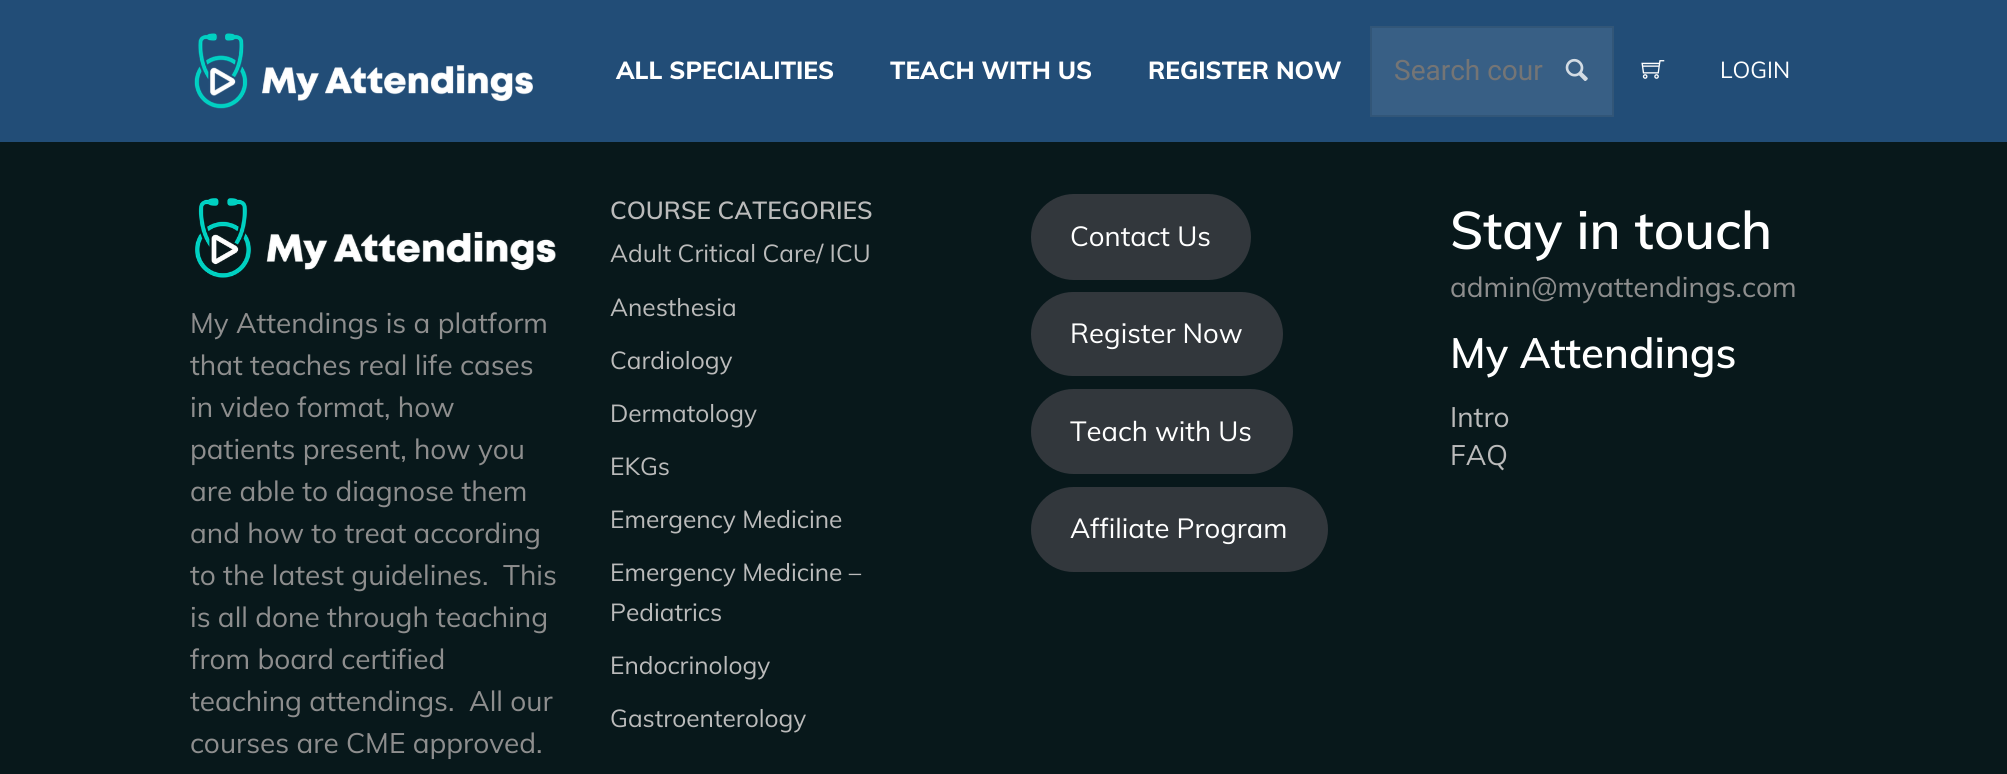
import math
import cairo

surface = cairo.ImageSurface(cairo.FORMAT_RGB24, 2007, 774)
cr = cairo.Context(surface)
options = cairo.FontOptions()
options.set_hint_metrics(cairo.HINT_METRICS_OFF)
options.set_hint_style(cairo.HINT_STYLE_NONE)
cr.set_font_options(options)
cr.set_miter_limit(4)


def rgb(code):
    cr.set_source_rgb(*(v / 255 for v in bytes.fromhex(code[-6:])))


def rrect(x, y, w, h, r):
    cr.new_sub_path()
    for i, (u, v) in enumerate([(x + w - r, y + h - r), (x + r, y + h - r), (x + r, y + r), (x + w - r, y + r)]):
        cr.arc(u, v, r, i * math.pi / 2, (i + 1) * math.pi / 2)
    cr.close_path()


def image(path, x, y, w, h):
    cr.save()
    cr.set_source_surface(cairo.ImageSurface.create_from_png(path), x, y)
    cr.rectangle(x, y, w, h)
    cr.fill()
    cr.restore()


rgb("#08181b")
cr.paint()
rgb("#224d77")
cr.rectangle(0, 0, 2007, 142)
cr.fill()
image("img/1.png", 194, 33, 339, 76)
rgb("#385f85")
cr.rectangle(1371, 27, 242, 89)
cr.fill_preserve()
rgb("#325678")
cr.stroke()
image("img/2.png", 1565, 58, 23, 23)
image("img/3.png", 1641, 60, 24, 19)
rgb("#32373c")
rrect(1031, 194, 220, 86, 43)
cr.fill()
rrect(1031, 292, 252, 84, 42)
cr.fill()
rrect(1031, 389, 262, 85, 42.5)
cr.fill()
rrect(1031, 487, 297, 85, 42.5)
cr.fill()
image("img/4.png", 195, 198, 361, 80)
cr.select_font_face("Muli ExtraBold")
cr.set_font_size(24.5)
rgb("#ffffff")
for x, y, s in [
    (616, 79, "ALL SPECIALITIES"),
    (890, 79, "TEACH WITH US"),
    (1148, 79, "REGISTER NOW"),
]:
    cr.move_to(x, y)
    cr.show_text(s)
cr.select_font_face("Roboto")
cr.set_font_size(28)
rgb("#757575")
cr.move_to(1394, 80)
cr.show_text("Search cour")
cr.select_font_face("Muli")
cr.set_font_size(23)
rgb("#ffffff")
cr.move_to(1720, 78)
cr.show_text("LOGIN")
cr.select_font_face("Muli SemiBold")
cr.set_font_size(24.5)
rgb("#bbbbbb")
cr.move_to(610, 219)
cr.show_text("COURSE CATEGORIES")
cr.select_font_face("Muli")
for x, y, s in [
    (610, 262, "Adult Critical Care/ ICU"),
    (610, 316, "Anesthesia"),
    (610, 369, "Cardiology"),
    (610, 422, "Dermatology"),
    (610, 475, "EKGs"),
    (610, 528, "Emergency Medicine"),
    (610, 581, "Emergency Medicine –"),
    (610, 621, "Pediatrics"),
    (610, 674, "Endocrinology"),
    (610, 727, "Gastroenterology"),
]:
    cr.move_to(x, y)
    cr.show_text(s)
cr.set_font_size(27.5)
rgb("#ffffff")
for x, y, s in [
    (1070, 246, "Contact Us"),
    (1070, 343, "Register Now"),
    (1070, 441, "Teach with Us"),
    (1070, 538, "Affiliate Program"),
]:
    cr.move_to(x, y)
    cr.show_text(s)
cr.select_font_face("Muli SemiBold")
cr.set_font_size(52.5)
cr.move_to(1450, 249)
cr.show_text("Stay in touch")
cr.select_font_face("Muli")
cr.set_font_size(28)
rgb("#8e8e8e")
for x, y, s in [
    (1450, 297, "admin@myattendings.com"),
    (190, 333, "My Attendings is a platform"),
    (190, 375, "that teaches real life cases"),
    (190, 417, "in video format, how"),
    (190, 459, "patients present, how you"),
    (190, 501, "are able to diagnose them"),
    (190, 543, "and how to treat according"),
    (190, 585, "to the latest guidelines.  This"),
    (190, 627, "is all done through teaching"),
    (190, 669, "from board certified"),
    (190, 711, "teaching attendings.  All our"),
    (190, 753, "courses are CME approved."),
]:
    cr.move_to(x, y)
    cr.show_text(s)
cr.select_font_face("Muli SemiBold")
cr.set_font_size(42)
rgb("#ffffff")
cr.move_to(1450, 368)
cr.show_text("My Attendings")
cr.select_font_face("Muli")
cr.set_font_size(28)
rgb("#bbbbbb")
cr.move_to(1450, 427)
cr.show_text("Intro")
cr.move_to(1450, 465)
cr.show_text("FAQ")
surface.write_to_png("page.png")
